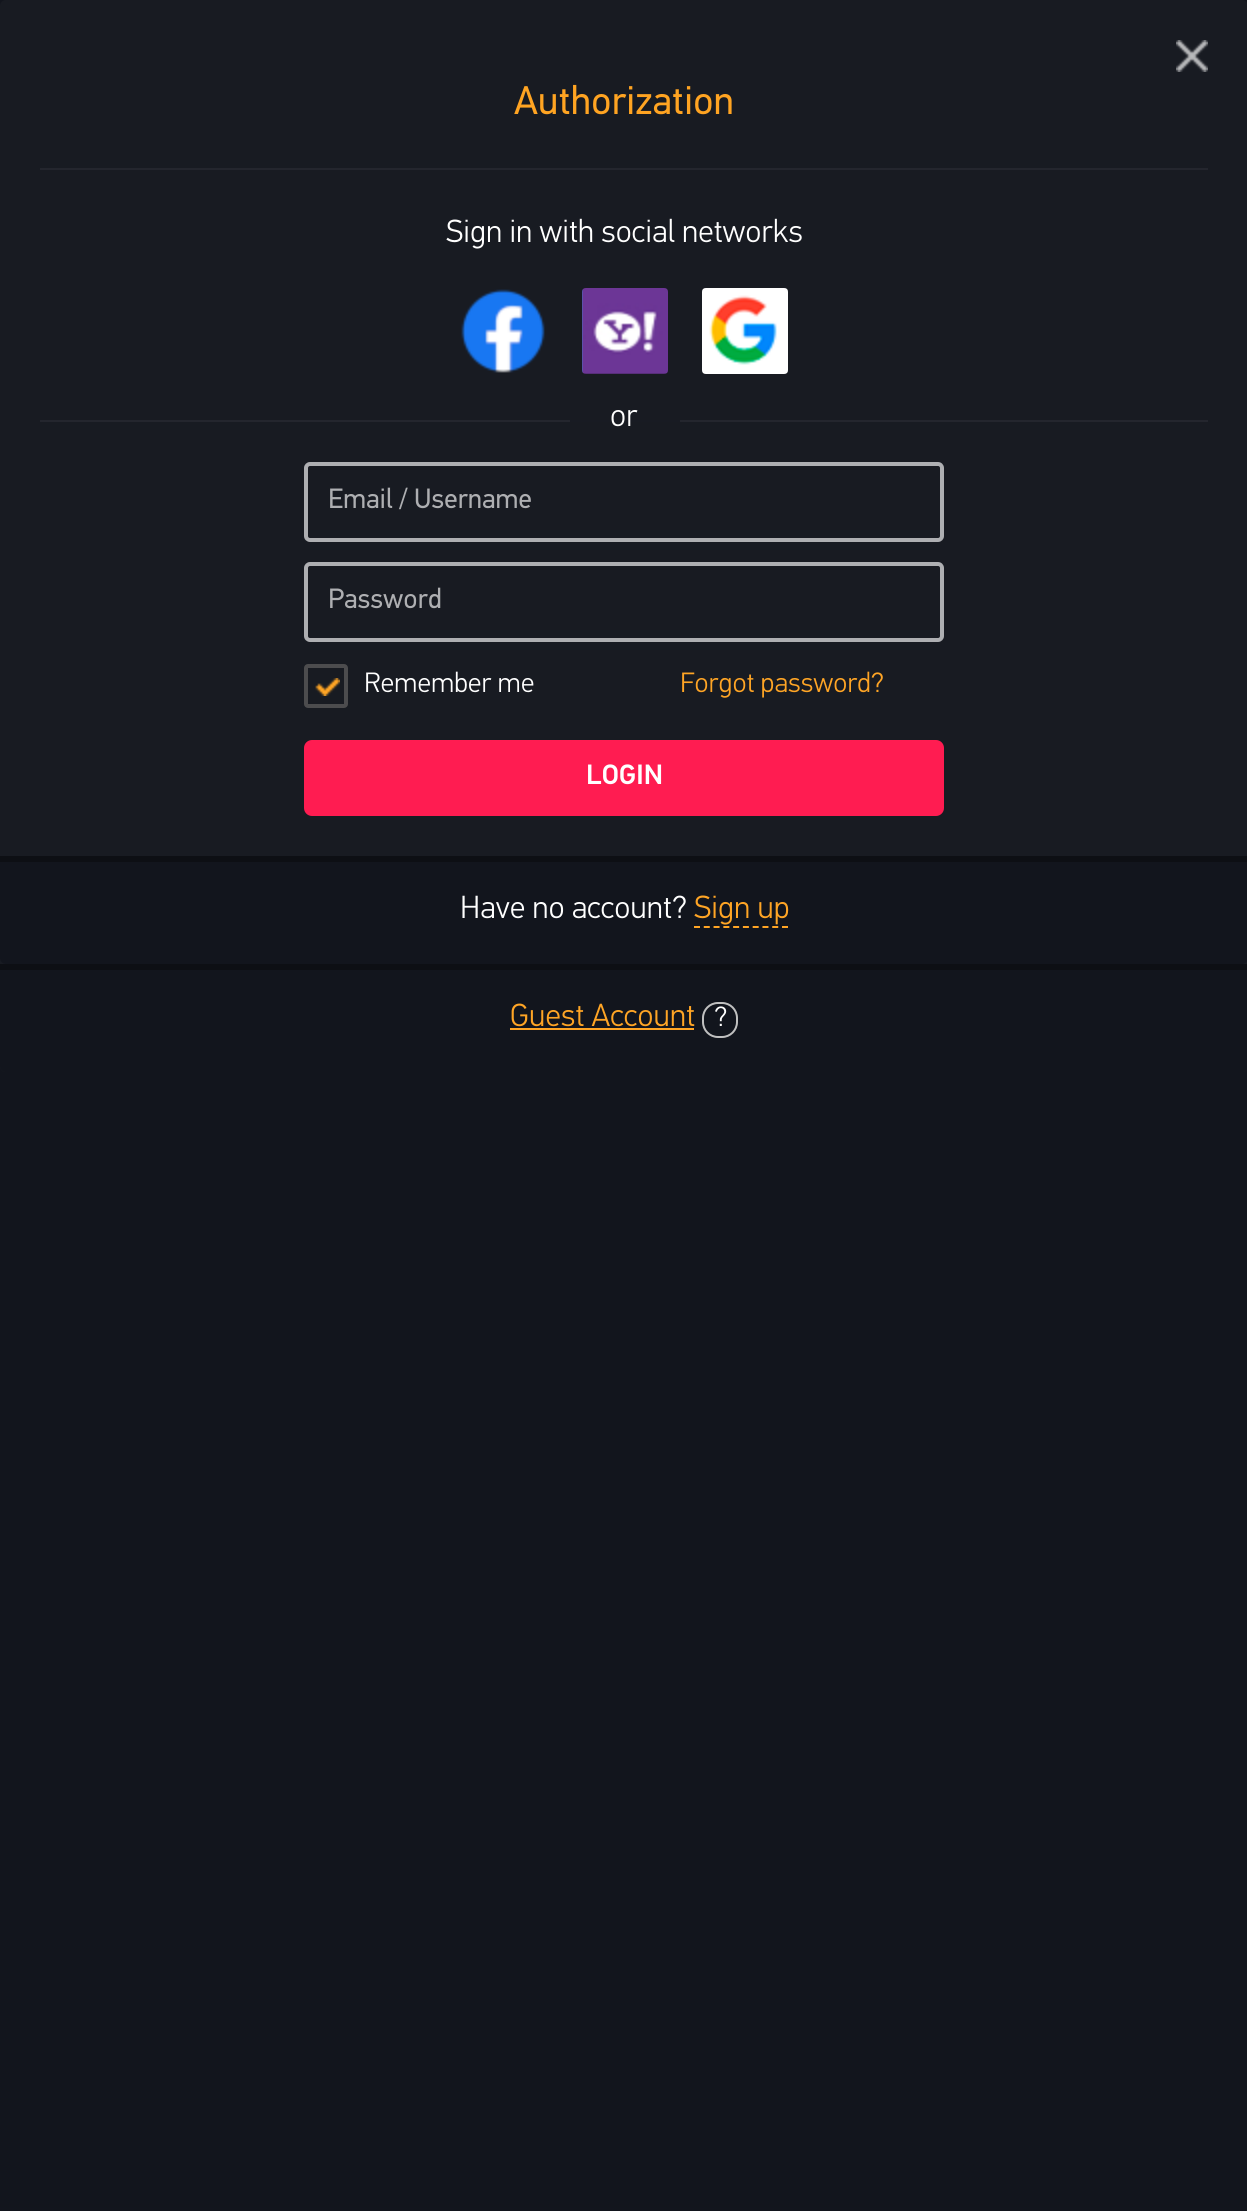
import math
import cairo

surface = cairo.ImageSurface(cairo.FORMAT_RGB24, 1247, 2211)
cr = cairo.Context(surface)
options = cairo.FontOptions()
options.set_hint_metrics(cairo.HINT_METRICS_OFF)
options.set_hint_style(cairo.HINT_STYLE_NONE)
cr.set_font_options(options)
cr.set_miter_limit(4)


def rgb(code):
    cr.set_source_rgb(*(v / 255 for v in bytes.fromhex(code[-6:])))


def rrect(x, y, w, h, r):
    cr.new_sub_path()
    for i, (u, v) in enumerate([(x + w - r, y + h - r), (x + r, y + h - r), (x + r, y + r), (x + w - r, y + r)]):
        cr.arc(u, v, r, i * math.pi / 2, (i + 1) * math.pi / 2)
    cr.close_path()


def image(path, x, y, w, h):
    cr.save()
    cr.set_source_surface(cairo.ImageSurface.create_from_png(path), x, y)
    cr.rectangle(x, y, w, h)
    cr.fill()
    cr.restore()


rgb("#12151d")
cr.paint()
rgb("#181b22")
rrect(0, 0, 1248, 1072, 6)
cr.fill()
rgb("#24262e")
cr.rectangle(40, 168, 1168, 2)
cr.fill()
image("img/1.png", 1176, 40, 32, 32)
image("img/2.png", 514, 84, 218, 31)
cr.rectangle(40, 420, 1168, 2)
cr.fill()
image("img/3.png", 446, 218, 356, 31)
image("img/4.png", 461, 289, 84, 84)
image("img/5.png", 582, 288, 86, 86)
image("img/6.png", 702, 288, 86, 86)
rgb("#181b23")
cr.rectangle(570, 420, 110, 2)
cr.fill()
image("img/7.png", 611, 410, 27, 17)
rrect(306, 464, 636, 76, 4)
rgb("#aeafb2")
cr.set_line_width(4)
cr.stroke()
image("img/8.png", 330, 487, 201, 23)
rrect(306, 564, 636, 76, 4)
cr.stroke()
image("img/9.png", 330, 587, 111, 22)
image("img/10.png", 315, 678, 25, 18)
rrect(306, 666, 40, 40, 2)
rgb("#4c4c4e")
cr.stroke()
image("img/11.png", 366, 671, 168, 22)
image("img/12.png", 682, 671, 201, 27)
rgb("#ff1c51")
rrect(304, 740, 640, 76, 8)
cr.fill()
image("img/13.png", 588, 764, 74, 21)
rgb("#12151d")
cr.new_path()
cr.move_to(0, 856)
cr.line_to(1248, 856)
cr.line_to(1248, 958)
cr.curve_to(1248, 961.5, 1245.5, 964, 1242, 964)
cr.line_to(6, 964)
cr.curve_to(2.5, 964, 0, 961.5, 0, 958)
cr.close_path()
cr.fill()
rgb("#0d0f14")
cr.rectangle(0, 856, 1247, 6)
cr.fill()
image("img/14.png", 462, 895, 224, 24)
image("img/15.png", 694, 895, 95, 30)
cr.new_path()
cr.move_to(694, 927)
cr.line_to(788, 927)
rgb("#ffa525")
cr.set_line_width(2)
cr.set_dash([6, 3.78])
cr.stroke()
rgb("#12151d")
cr.new_path()
cr.move_to(0, 964)
cr.line_to(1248, 964)
cr.line_to(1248, 1066)
cr.curve_to(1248, 1069.5, 1245.5, 1072, 1242, 1072)
cr.line_to(6, 1072)
cr.curve_to(2.5, 1072, 0, 1069.5, 0, 1066)
cr.close_path()
cr.fill()
rgb("#0d0f14")
cr.rectangle(0, 964, 1247, 6)
cr.fill()
image("img/16.png", 511, 1003, 184, 24)
rrect(703, 1003, 34, 34, 15)
rgb("#c0c0c0")
cr.set_dash([])
cr.stroke()
image("img/17.png", 715, 1006, 12, 20)
rgb("#ffa525")
cr.rectangle(510, 1028, 184, 2)
cr.fill()
surface.write_to_png("page.png")
